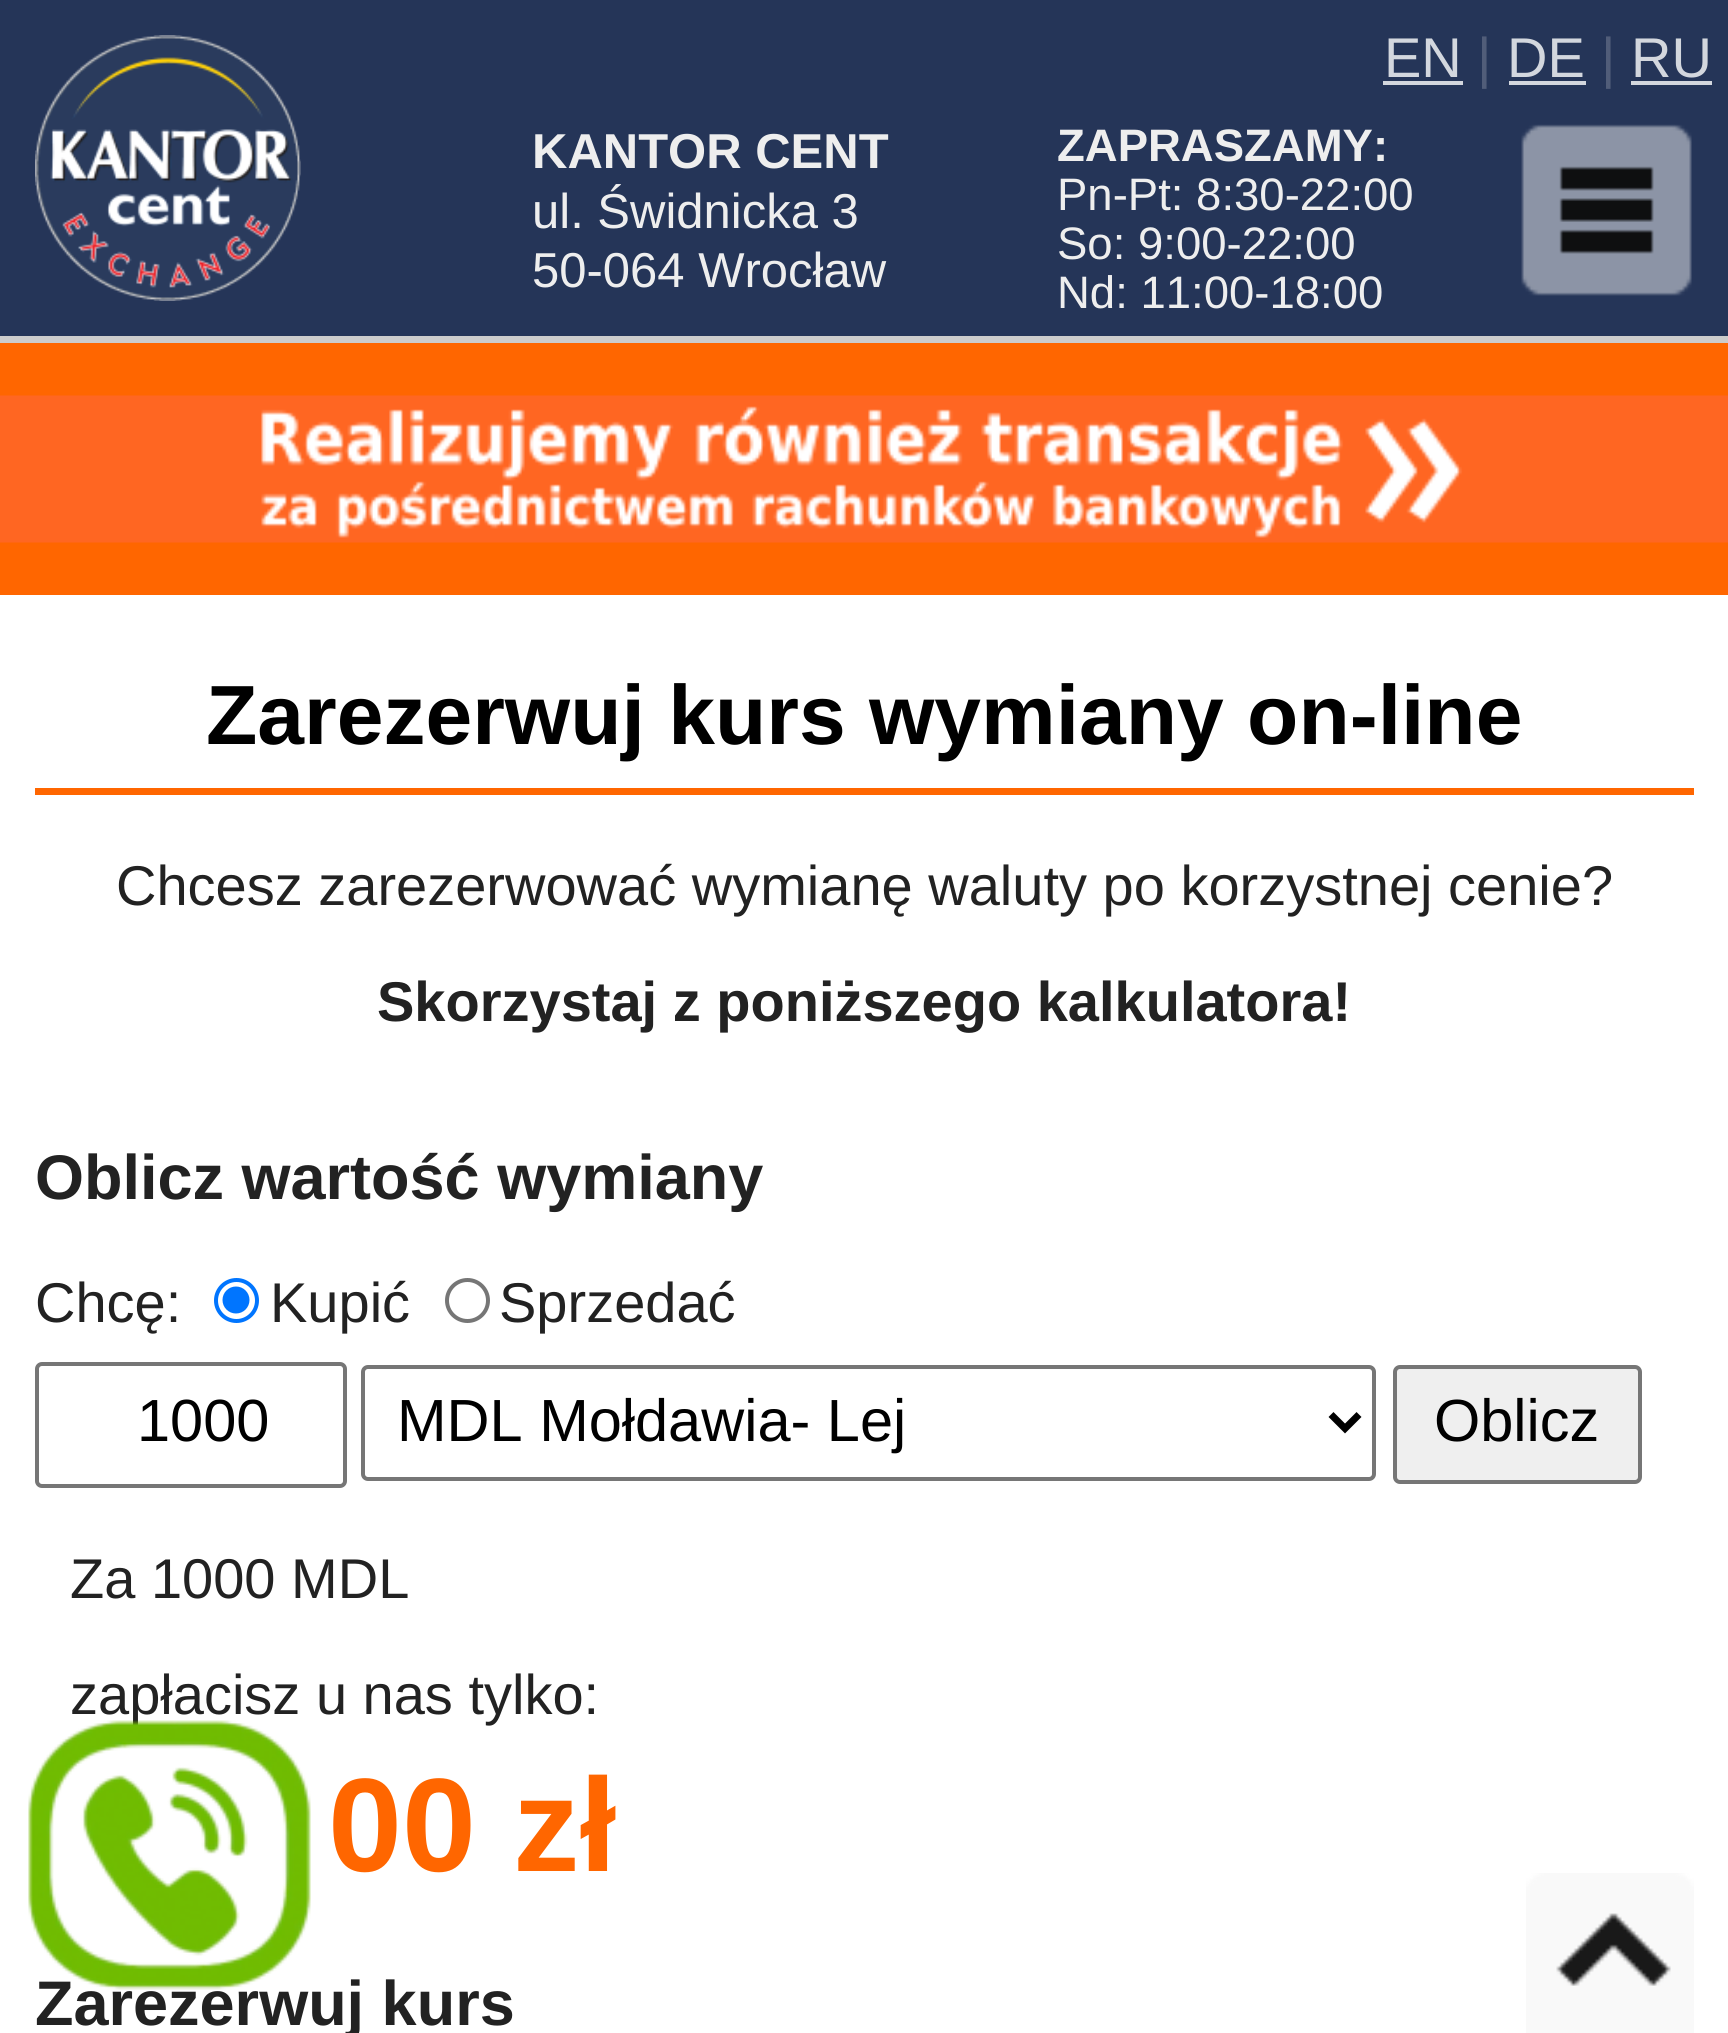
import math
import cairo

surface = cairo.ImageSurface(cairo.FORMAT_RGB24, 1728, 2033)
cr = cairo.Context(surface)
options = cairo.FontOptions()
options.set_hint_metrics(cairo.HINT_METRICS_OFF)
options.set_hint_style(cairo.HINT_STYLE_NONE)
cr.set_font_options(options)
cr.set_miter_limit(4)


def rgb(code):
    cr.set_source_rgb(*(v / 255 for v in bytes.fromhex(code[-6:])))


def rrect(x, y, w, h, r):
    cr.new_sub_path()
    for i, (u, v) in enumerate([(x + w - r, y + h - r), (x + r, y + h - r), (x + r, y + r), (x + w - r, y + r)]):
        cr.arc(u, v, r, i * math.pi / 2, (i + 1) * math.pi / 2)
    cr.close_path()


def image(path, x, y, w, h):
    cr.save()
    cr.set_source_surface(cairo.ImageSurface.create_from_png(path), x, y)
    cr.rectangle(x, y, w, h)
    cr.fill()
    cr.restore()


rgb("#253558")
cr.paint()
rgb("#cccccc")
cr.rectangle(0, 336, 1728, 7)
cr.fill()
image("img/1.png", 35, 35, 266, 266)
for x, y, w, h, color in [
    (1383, 81, 80, 4, "#d3d7de"),
    (1509, 81, 77, 4, "#d3d7de"),
    (1631, 81, 81, 4, "#d3d7de"),
]:
    rgb(color)
    cr.rectangle(x, y, w, h)
    cr.fill()
image("img/2.png", 1521, 124, 171, 172)
rgb("#ff6600")
cr.rectangle(0, 343, 1728, 252)
cr.fill()
image("img/3.png", 0, 395, 1728, 148)
rgb("#ffffff")
cr.rectangle(0, 595, 1728, 1438)
cr.fill()
rgb("#ff6600")
cr.rectangle(35, 788, 1659, 7)
cr.fill()
cr.arc(236.5, 1300.5, 20.5, 0, 2 * math.pi)
rgb("#0075ff")
cr.set_line_width(4)
cr.stroke()
cr.arc(236, 1300, 13.5, 0, 2 * math.pi)
cr.fill()
cr.arc(467.5, 1300.5, 20.5, 0, 2 * math.pi)
rgb("#767676")
cr.stroke()
rrect(37, 1364, 308, 122, 5)
cr.stroke()
rrect(363, 1367, 1011, 112, 5)
cr.stroke()
cr.new_path()
cr.move_to(1331, 1414.5)
cr.line_to(1345, 1428.5)
cr.line_to(1359, 1414.5)
rgb("#000000")
cr.set_line_width(7)
cr.stroke()
rgb("#efefef")
rrect(1395, 1367, 245, 115, 5)
cr.fill_preserve()
rgb("#767676")
cr.set_line_width(4)
cr.stroke()
image("img/4.png", 1526, 1873, 168, 160)
cr.select_font_face("Liberation Sans")
cr.set_font_size(56)
rgb("#d3d7de")
cr.move_to(1384, 77)
cr.show_text("EN")
rgb("#515d79")
cr.move_to(1477, 77)
cr.show_text("|")
rgb("#d3d7de")
cr.move_to(1507, 77)
cr.show_text("DE")
rgb("#515d79")
cr.move_to(1601, 77)
cr.show_text("|")
rgb("#d3d7de")
cr.move_to(1631, 77)
cr.show_text("RU")
cr.select_font_face("Liberation Sans", cairo.FONT_SLANT_NORMAL, cairo.FONT_WEIGHT_BOLD)
cr.set_font_size(49)
rgb("#eeeeee")
cr.move_to(532, 168)
cr.show_text("KANTOR CENT")
cr.select_font_face("Liberation Sans")
cr.move_to(532, 228)
cr.show_text("ul. Świdnicka 3")
cr.move_to(532, 287)
cr.show_text("50-064 Wrocław")
cr.select_font_face("Liberation Sans", cairo.FONT_SLANT_NORMAL, cairo.FONT_WEIGHT_BOLD)
cr.set_font_size(45.5)
cr.move_to(1057, 161)
cr.show_text("ZAPRASZAMY:")
cr.select_font_face("Liberation Sans")
for x, y, s in [
    (1057, 210, "Pn-Pt: 8:30-22:00"),
    (1057, 259, "So: 9:00-22:00"),
    (1057, 308, "Nd: 11:00-18:00"),
]:
    cr.move_to(x, y)
    cr.show_text(s)
cr.select_font_face("Liberation Sans", cairo.FONT_SLANT_NORMAL, cairo.FONT_WEIGHT_BOLD)
cr.set_font_size(84)
rgb("#000000")
cr.move_to(206, 744)
cr.show_text("Zarezerwuj kurs wymiany on-line")
cr.select_font_face("Liberation Sans")
cr.set_font_size(56)
rgb("#222222")
cr.move_to(116, 905)
cr.show_text("Chcesz zarezerwować wymianę waluty po korzystnej cenie?")
cr.select_font_face("Liberation Sans", cairo.FONT_SLANT_NORMAL, cairo.FONT_WEIGHT_BOLD)
cr.move_to(377, 1021)
cr.show_text("Skorzystaj z poniższego kalkulatora!")
cr.set_font_size(63)
cr.move_to(35, 1199)
cr.show_text("Oblicz wartość wymiany")
cr.select_font_face("Liberation Sans")
cr.set_font_size(56)
for x, y, s in [
    (35, 1322, "Chcę:"),
    (270, 1322, "Kupić"),
    (499, 1322, "Sprzedać"),
]:
    cr.move_to(x, y)
    cr.show_text(s)
cr.set_font_size(59.5)
rgb("#000000")
for x, y, s in [
    (137, 1441, "1000"),
    (397, 1441, "MDL Mołdawia- Lej"),
    (1434, 1441, "Oblicz"),
]:
    cr.move_to(x, y)
    cr.show_text(s)
cr.set_font_size(56)
rgb("#222222")
cr.move_to(70, 1598)
cr.show_text("Za 1000 MDL")
cr.move_to(70, 1714)
cr.show_text("zapłacisz u nas tylko:")
cr.select_font_face("Liberation Sans", cairo.FONT_SLANT_NORMAL, cairo.FONT_WEIGHT_BOLD)
cr.set_font_size(133)
rgb("#ff6600")
cr.move_to(328, 1871)
cr.show_text("00 zł")
cr.set_font_size(63)
rgb("#222222")
cr.move_to(35, 2025)
cr.show_text("Zarezerwuj kurs")
image("img/5.png", 28, 1720, 283, 270)
surface.write_to_png("page.png")
